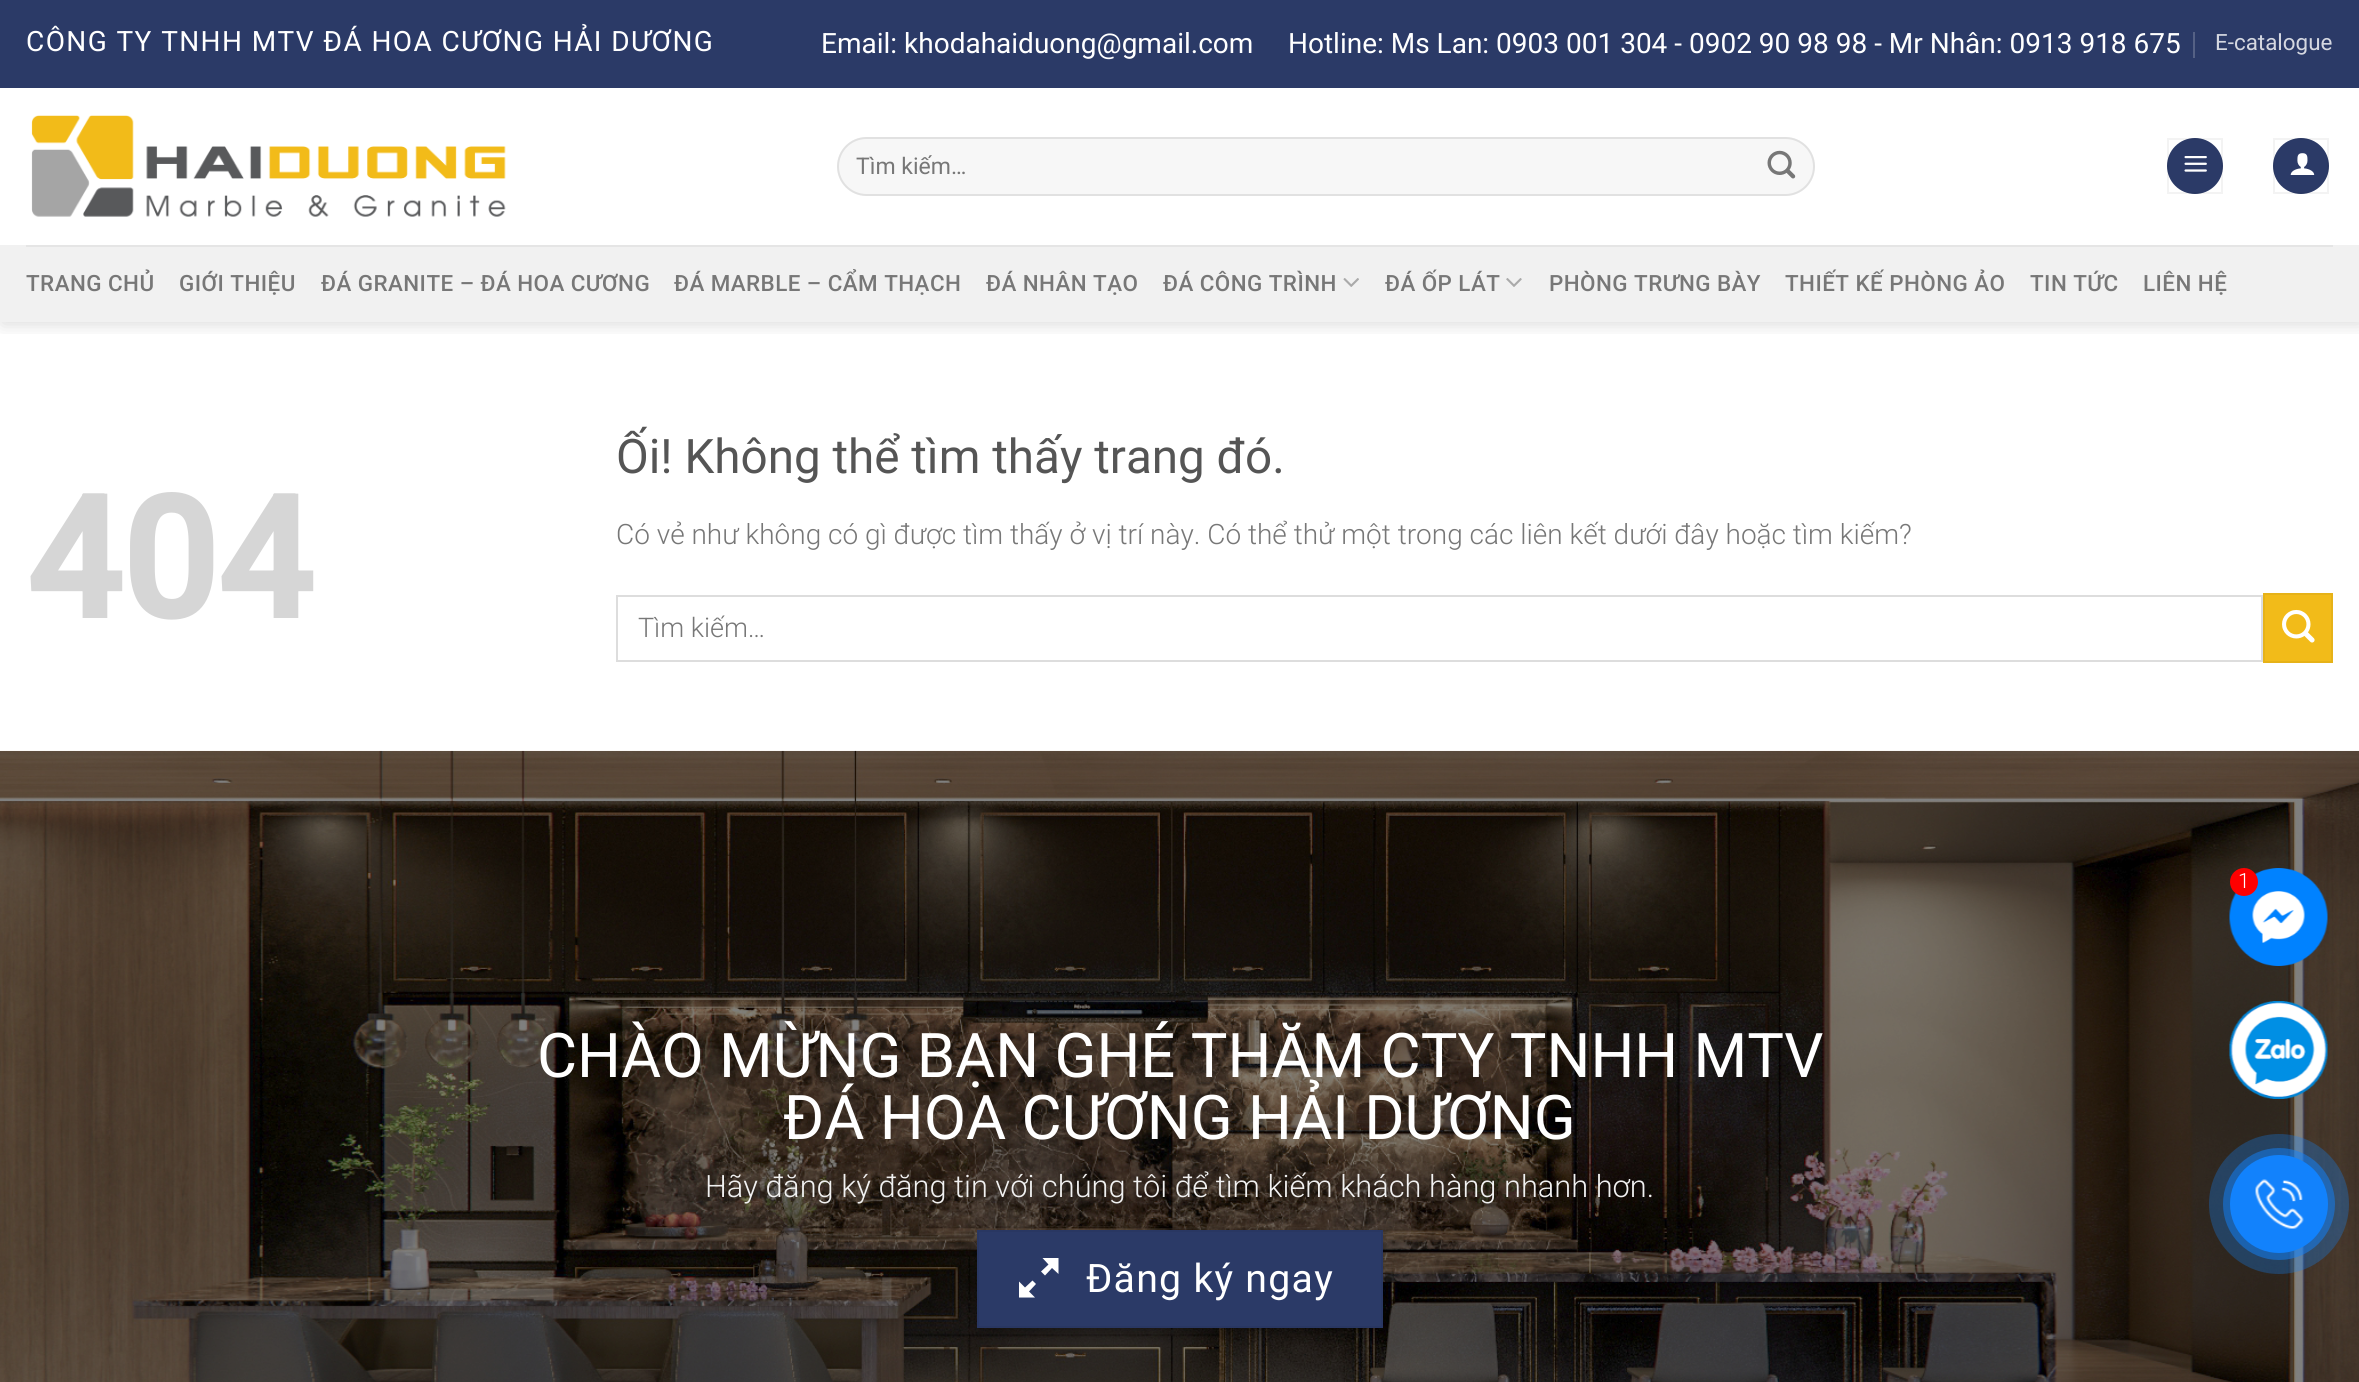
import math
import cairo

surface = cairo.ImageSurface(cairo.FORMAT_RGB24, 2359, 1382)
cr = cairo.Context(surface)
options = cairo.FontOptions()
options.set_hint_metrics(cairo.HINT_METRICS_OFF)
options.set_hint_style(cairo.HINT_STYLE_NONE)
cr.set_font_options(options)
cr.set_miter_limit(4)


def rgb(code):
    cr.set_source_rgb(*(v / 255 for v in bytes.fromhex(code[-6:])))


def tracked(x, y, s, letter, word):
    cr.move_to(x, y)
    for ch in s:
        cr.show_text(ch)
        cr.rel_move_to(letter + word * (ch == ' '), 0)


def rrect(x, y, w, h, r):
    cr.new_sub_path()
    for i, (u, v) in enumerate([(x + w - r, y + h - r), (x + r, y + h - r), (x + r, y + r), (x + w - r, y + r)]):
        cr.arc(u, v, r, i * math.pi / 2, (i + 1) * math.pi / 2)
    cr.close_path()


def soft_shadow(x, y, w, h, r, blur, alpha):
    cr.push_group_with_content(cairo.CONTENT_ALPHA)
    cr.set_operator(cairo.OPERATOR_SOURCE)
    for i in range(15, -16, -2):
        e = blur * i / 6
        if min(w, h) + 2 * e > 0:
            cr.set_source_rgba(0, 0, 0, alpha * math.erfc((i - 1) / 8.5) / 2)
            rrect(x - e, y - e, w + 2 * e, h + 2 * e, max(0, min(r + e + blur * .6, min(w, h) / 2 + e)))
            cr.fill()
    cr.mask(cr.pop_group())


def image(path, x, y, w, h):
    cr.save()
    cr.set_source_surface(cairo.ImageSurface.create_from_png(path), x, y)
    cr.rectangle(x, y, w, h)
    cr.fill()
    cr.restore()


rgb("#ffffff")
cr.paint()
cr.save()
cr.rectangle(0, 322, 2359, 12)
cr.clip()
rgb("#000000")
soft_shadow(2, 2, 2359, 322, 0, 9, 0.15)
cr.restore()
rgb("#2b3a67")
cr.rectangle(0, 0, 2359, 88)
cr.fill()
rgb("#556185")
cr.rectangle(2193, 32, 2, 26)
cr.fill()
image("img/1.png", 31, 115, 475, 102)
rgb("#f7f7f7")
rrect(837, 137, 978, 59, 29.5)
cr.fill()
rrect(838, 138, 976, 57, 28.5)
cr.set_source_rgba(0, 0, 0, 0.09)
cr.stroke()
image("img/2.png", 1767, 150, 29, 29)
rgb("#2b3a67")
cr.arc(2195, 166, 28, 0, 2 * math.pi)
cr.fill()
cr.rectangle(2168, 139, 54, 54)
cr.set_source_rgba(0, 0, 0, 0.05)
cr.stroke()
image("img/3.png", 2184, 156, 23, 16)
rgb("#2b3a67")
cr.arc(2301, 166, 28, 0, 2 * math.pi)
cr.fill()
cr.rectangle(2274, 139, 54, 54)
cr.set_source_rgba(0, 0, 0, 0.05)
cr.stroke()
image("img/4.png", 2290, 153, 25, 22)
rgb("#f1f1f1")
cr.rectangle(0, 245, 2359, 77)
cr.fill()
rgb("#e5e5e5")
cr.rectangle(26, 245, 2307, 2)
cr.fill()
image("img/5.png", 1343, 278, 16, 9)
image("img/6.png", 1506, 278, 16, 9)
cr.rectangle(617, 596, 1645, 65)
rgb("#dddddd")
cr.stroke()
rgb("#f2bb19")
cr.rectangle(2264, 594, 68, 68)
cr.fill_preserve()
rgb("#e6b218")
cr.stroke()
image("img/7.png", 2282, 609, 33, 34)
image("img/8.png", 0, 750, 2359, 632)
rgb("#000000")
soft_shadow(977, 1236, 406, 98, 0, 5, 0.23)
soft_shadow(984, 1243, 392, 84, 0, 5, 0.16)
rgb("#2b3a67")
cr.rectangle(978, 1231, 404, 96)
cr.fill_preserve()
rgb("#293762")
cr.stroke()
rgb("#ffffff")
cr.new_path()
cr.move_to(1058.5, 1258)
cr.line_to(1058.5, 1274)
cr.line_to(1052, 1268)
cr.line_to(1045, 1275.5)
cr.line_to(1041, 1271.5)
cr.line_to(1048.5, 1264.5)
cr.line_to(1042.5, 1258)
cr.close_path()
cr.move_to(1036, 1284)
cr.line_to(1029, 1291.5)
cr.line_to(1035, 1297.5)
cr.line_to(1019, 1297.5)
cr.line_to(1019, 1281.5)
cr.line_to(1025, 1287.5)
cr.line_to(1032.5, 1280.5)
cr.close_path()
cr.fill()
image("img/9.png", 2229, 868, 99, 98)
rgb("#ff0000")
cr.arc(2244, 882, 14, 0, 2 * math.pi)
cr.fill()
image("img/10.png", 2229, 1001, 99, 98)
rgb("#1282fc")
cr.arc(2279, 1204, 49, 0, 2 * math.pi)
cr.fill()
cr.set_source_rgba(0.071, 0.51, 0.988, 0.3)
cr.arc(2279, 1204, 70, 0, 2 * math.pi)
cr.fill()
cr.set_source_rgba(0.071, 0.51, 0.988, 0.5)
cr.arc(2279, 1204, 56, 0, 2 * math.pi)
cr.fill()
image("img/11.png", 2255, 1179, 49, 50)
cr.select_font_face("Roboto")
cr.set_font_size(28)
rgb("#ffffff")
tracked(26, 51, "CÔNG TY TNHH MTV ĐÁ HOA CƯƠNG HẢI DƯƠNG", 1.4, 0)
cr.move_to(821, 53)
cr.show_text("Email: khodahaiduong@gmail.com")
cr.move_to(1288, 53)
cr.show_text("Hotline: Ms Lan: 0903 001 304 - 0902 90 98 98 - Mr Nhân: 0913 918 675")
cr.set_font_size(22.4)
rgb("#d5d8e1")
cr.move_to(2215, 50)
cr.show_text("E-catalogue")
cr.set_font_size(23)
rgb("#777777")
cr.move_to(856, 174)
cr.show_text("Tìm kiếm…")
cr.select_font_face("Roboto Medium")
cr.set_font_size(22.4)
for x, y, s in [
    (26, 291, "TRANG CHỦ"),
    (179, 291, "GIỚI THIỆU"),
    (321, 291, "ĐÁ GRANITE – ĐÁ HOA CƯƠNG"),
    (674, 291, "ĐÁ MARBLE – CẨM THẠCH"),
    (986, 291, "ĐÁ NHÂN TẠO"),
    (1163, 291, "ĐÁ CÔNG TRÌNH"),
    (1385, 291, "ĐÁ ỐP LÁT"),
    (1549, 291, "PHÒNG TRƯNG BÀY"),
    (1785, 291, "THIẾT KẾ PHÒNG ẢO"),
    (2030, 291, "TIN TỨC"),
    (2143, 291, "LIÊN HỆ"),
]:
    tracked(x, y, s, 0.45, 0)
cr.select_font_face("Roboto", cairo.FONT_SLANT_NORMAL, cairo.FONT_WEIGHT_BOLD)
cr.set_font_size(168)
rgb("#d6d6d6")
cr.move_to(26, 618)
cr.show_text("404")
cr.select_font_face("Roboto")
cr.set_font_size(47.6)
rgb("#555555")
cr.move_to(616, 473)
cr.show_text("Ối! Không thể tìm thấy trang đó.")
cr.select_font_face("Roboto Light")
cr.set_font_size(28)
rgb("#777777")
cr.move_to(616, 544)
cr.show_text("Có vẻ như không có gì được tìm thấy ở vị trí này. Có thể thử một trong các liên kết dưới đây hoặc tìm kiếm?")
cr.set_font_size(27)
cr.move_to(638, 637)
cr.show_text("Tìm kiếm…")
cr.select_font_face("Roboto")
cr.set_font_size(61.6)
rgb("#ffffff")
cr.move_to(537, 1077)
cr.show_text("CHÀO MỪNG BẠN GHÉ THĂM CTY TNHH MTV")
cr.move_to(783, 1139)
cr.show_text("ĐÁ HOA CƯƠNG HẢI DƯƠNG")
cr.select_font_face("Roboto Light")
cr.set_font_size(30.8)
rgb("#f1f1f1")
cr.move_to(705, 1197)
cr.show_text("Hãy đăng ký đăng tin với chúng tôi để tìm kiếm khách hàng nhanh hơn.")
cr.select_font_face("Roboto")
cr.set_font_size(39.25)
rgb("#ffffff")
tracked(1086, 1292, "Đăng ký ngay", 1.25, 0)
cr.select_font_face("Roboto Light")
cr.set_font_size(21)
cr.move_to(2238, 888)
cr.show_text("1")
surface.write_to_png("page.png")
